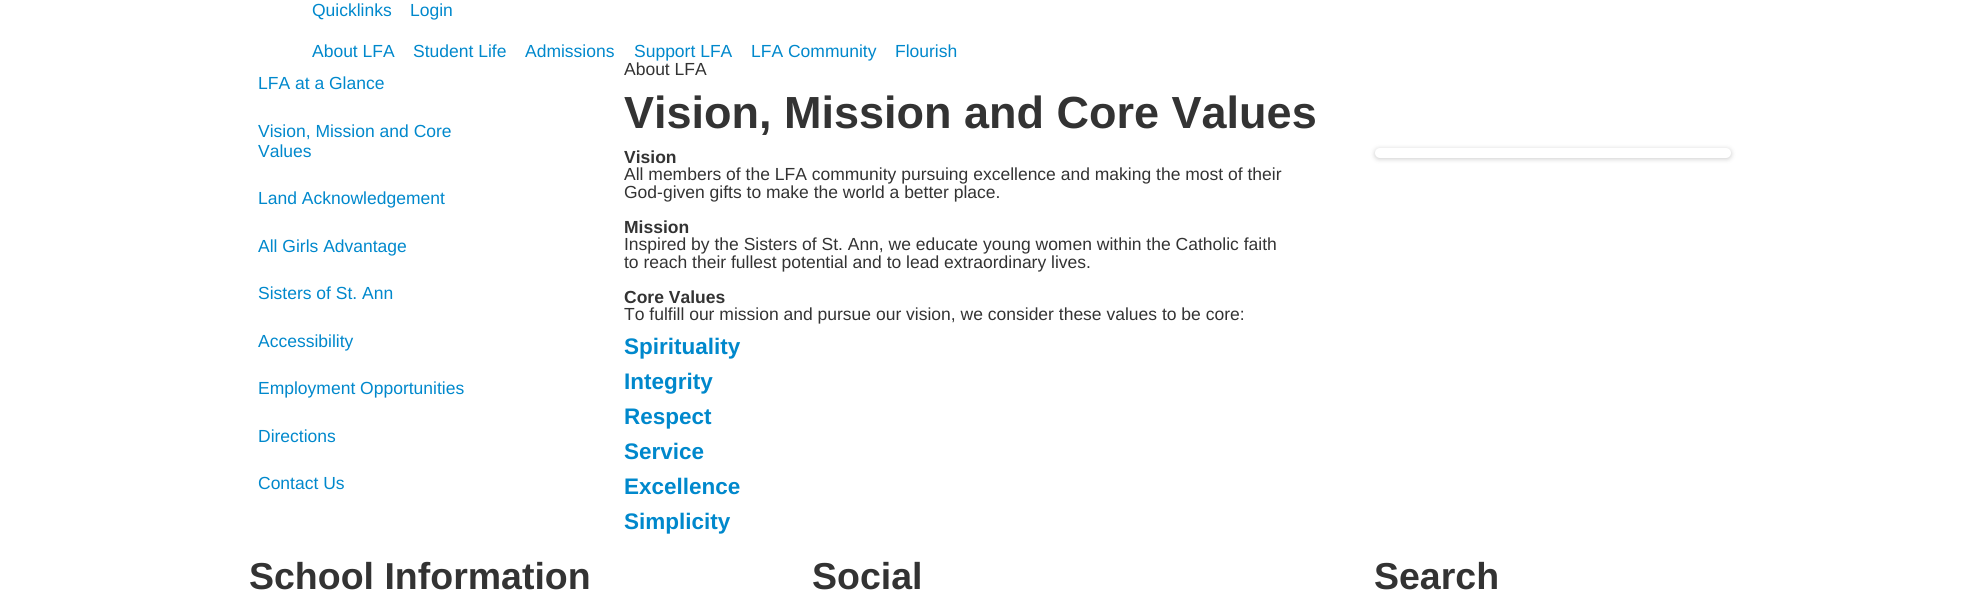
import math
import cairo

surface = cairo.ImageSurface(cairo.FORMAT_RGB24, 1980, 599)
cr = cairo.Context(surface)
options = cairo.FontOptions()
options.set_hint_metrics(cairo.HINT_METRICS_OFF)
options.set_hint_style(cairo.HINT_STYLE_NONE)
cr.set_font_options(options)
cr.set_miter_limit(4)


def rgb(code):
    cr.set_source_rgb(*(v / 255 for v in bytes.fromhex(code[-6:])))


def rrect(x, y, w, h, r):
    cr.new_sub_path()
    for i, (u, v) in enumerate([(x + w - r, y + h - r), (x + r, y + h - r), (x + r, y + r), (x + w - r, y + r)]):
        cr.arc(u, v, r, i * math.pi / 2, (i + 1) * math.pi / 2)
    cr.close_path()


def soft_shadow(x, y, w, h, r, blur, alpha):
    cr.push_group_with_content(cairo.CONTENT_ALPHA)
    cr.set_operator(cairo.OPERATOR_SOURCE)
    for i in range(15, -16, -2):
        e = blur * i / 6
        if min(w, h) + 2 * e > 0:
            cr.set_source_rgba(0, 0, 0, alpha * math.erfc((i - 1) / 8.5) / 2)
            rrect(x - e, y - e, w + 2 * e, h + 2 * e, max(0, min(r + e + blur * .6, min(w, h) / 2 + e)))
            cr.fill()
    cr.mask(cr.pop_group())


rgb("#ffffff")
cr.paint()
rgb("#000000")
soft_shadow(1375, 149, 356, 10, 5, 2.5, 0.2)
rgb("#ffffff")
rrect(1375, 148, 356, 10, 5)
cr.fill()
cr.select_font_face("Liberation Sans")
cr.set_font_size(17.5)
rgb("#0088cc")
for x, y, s in [
    (312, 16, "Quicklinks"),
    (410, 16, "Login"),
    (312, 57, "About LFA"),
    (413, 57, "Student Life"),
    (525, 57, "Admissions"),
    (634, 57, "Support LFA"),
    (751, 57, "LFA Community"),
    (895, 57, "Flourish"),
    (258, 89, "LFA at a Glance"),
    (258, 137, "Vision, Mission and Core"),
    (258, 157, "Values"),
    (258, 204, "Land Acknowledgement"),
    (258, 252, "All Girls Advantage"),
    (258, 299, "Sisters of St. Ann"),
    (258, 347, "Accessibility"),
    (258, 394, "Employment Opportunities"),
    (258, 442, "Directions"),
    (258, 489, "Contact Us"),
]:
    cr.move_to(x, y)
    cr.show_text(s)
rgb("#333333")
cr.move_to(624, 75)
cr.show_text("About LFA")
cr.select_font_face("Liberation Sans", cairo.FONT_SLANT_NORMAL, cairo.FONT_WEIGHT_BOLD)
cr.set_font_size(45)
cr.move_to(624, 128)
cr.show_text("Vision, Mission and Core Values")
cr.set_font_size(17.5)
cr.move_to(624, 163)
cr.show_text("Vision")
cr.select_font_face("Liberation Sans")
cr.move_to(624, 180)
cr.show_text("All members of the LFA community pursuing excellence and making the most of their")
cr.move_to(624, 198)
cr.show_text("God-given gifts to make the world a better place.")
cr.select_font_face("Liberation Sans", cairo.FONT_SLANT_NORMAL, cairo.FONT_WEIGHT_BOLD)
cr.move_to(624, 233)
cr.show_text("Mission")
cr.select_font_face("Liberation Sans")
cr.move_to(624, 250)
cr.show_text("Inspired by the Sisters of St. Ann, we educate young women within the Catholic faith")
cr.move_to(624, 268)
cr.show_text("to reach their fullest potential and to lead extraordinary lives.")
cr.select_font_face("Liberation Sans", cairo.FONT_SLANT_NORMAL, cairo.FONT_WEIGHT_BOLD)
cr.move_to(624, 303)
cr.show_text("Core Values")
cr.select_font_face("Liberation Sans")
cr.move_to(624, 320)
cr.show_text("To fulfill our mission and pursue our vision, we consider these values to be core:")
cr.select_font_face("Liberation Sans", cairo.FONT_SLANT_NORMAL, cairo.FONT_WEIGHT_BOLD)
cr.set_font_size(22.5)
rgb("#0088cc")
for x, y, s in [
    (624, 354, "Spirituality"),
    (624, 389, "Integrity"),
    (624, 424, "Respect"),
    (624, 459, "Service"),
    (624, 494, "Excellence"),
    (624, 529, "Simplicity"),
]:
    cr.move_to(x, y)
    cr.show_text(s)
cr.set_font_size(37.5)
rgb("#333333")
for x, y, s in [
    (249, 589, "School Information"),
    (812, 589, "Social"),
    (1374, 589, "Search"),
]:
    cr.move_to(x, y)
    cr.show_text(s)
surface.write_to_png("page.png")
